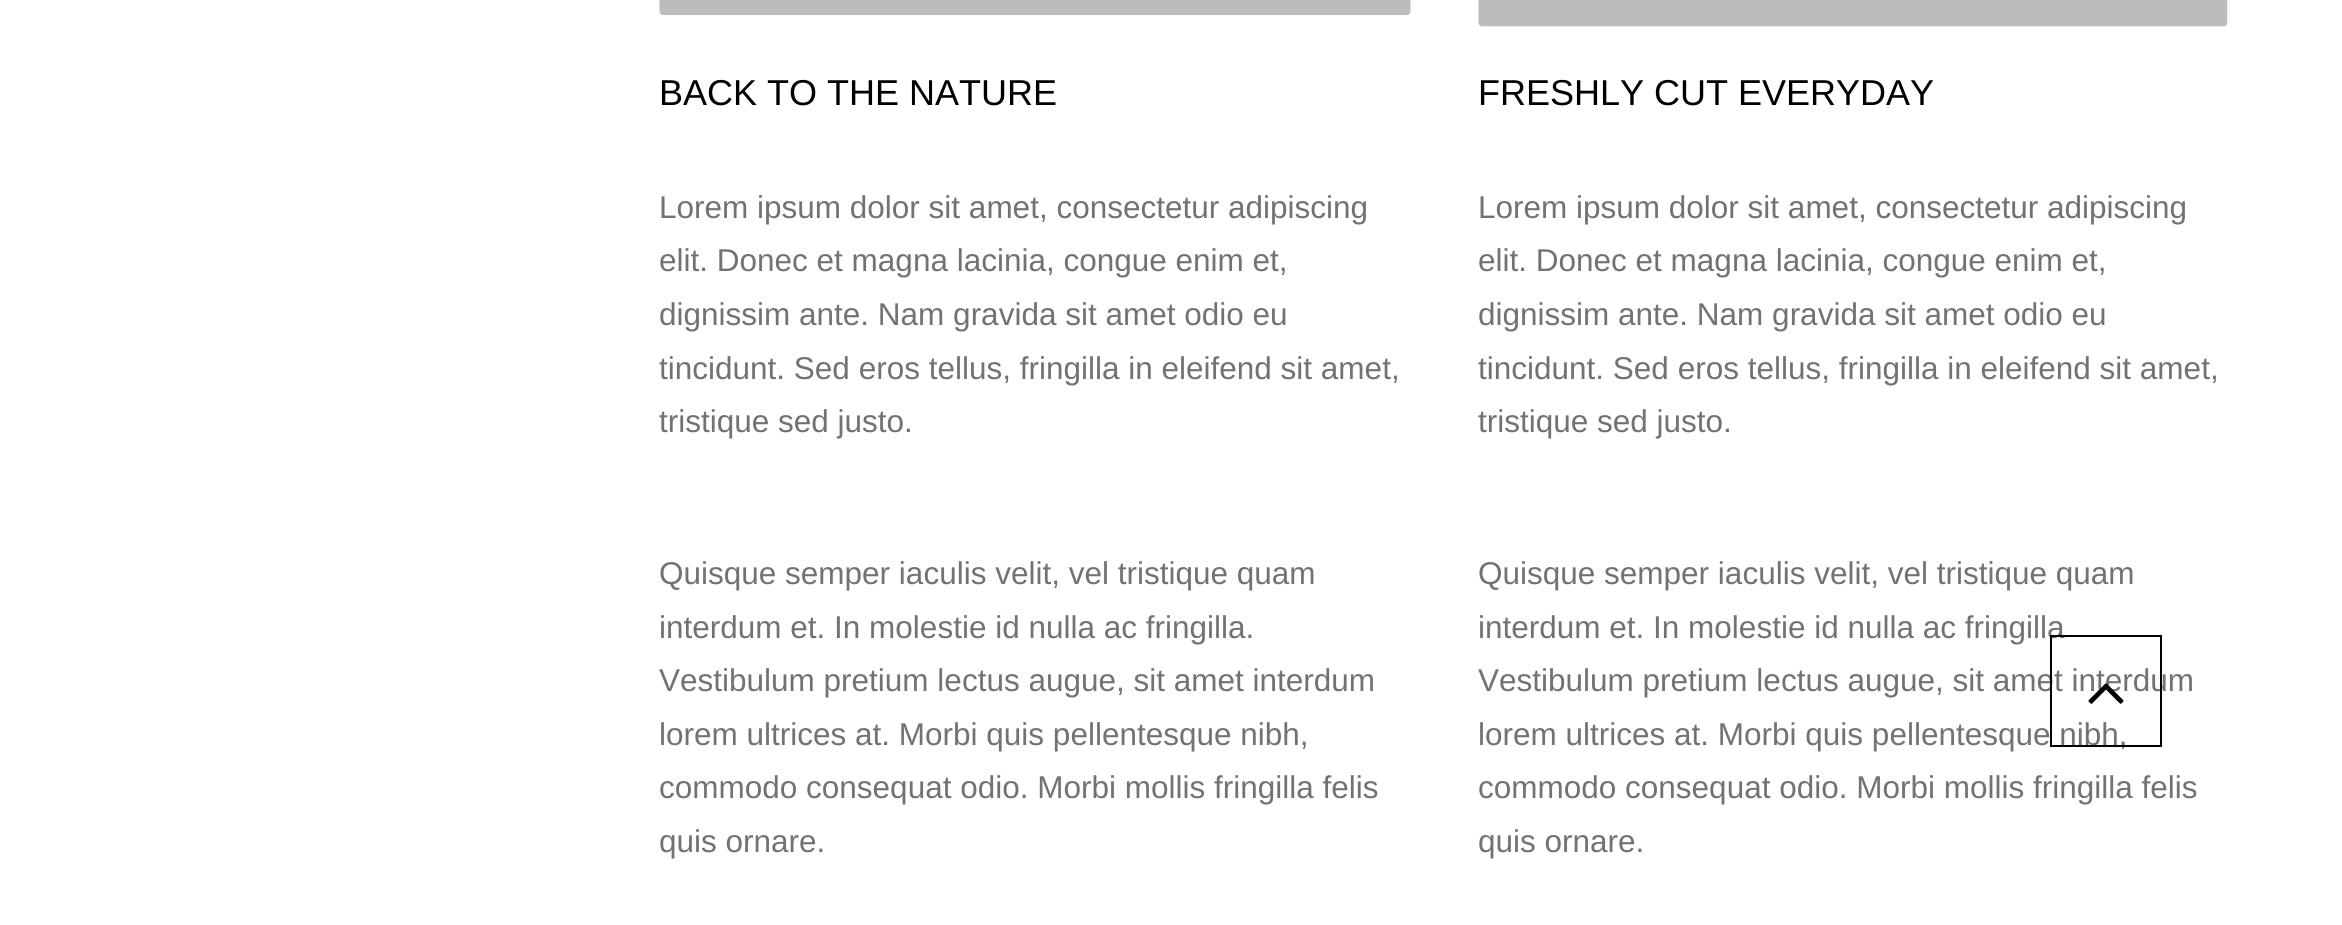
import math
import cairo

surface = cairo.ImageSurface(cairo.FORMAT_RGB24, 2342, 925)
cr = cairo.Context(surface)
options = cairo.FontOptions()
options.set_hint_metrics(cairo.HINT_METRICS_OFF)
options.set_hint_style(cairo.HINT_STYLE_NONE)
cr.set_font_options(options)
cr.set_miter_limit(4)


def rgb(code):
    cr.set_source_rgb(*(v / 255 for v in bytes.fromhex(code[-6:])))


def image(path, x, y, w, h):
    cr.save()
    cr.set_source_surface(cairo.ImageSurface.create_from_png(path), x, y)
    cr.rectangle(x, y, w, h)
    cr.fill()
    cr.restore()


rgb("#ffffff")
cr.paint()
image("img/1.png", 659, 0, 752, 16)
image("img/2.png", 1478, 0, 750, 27)
cr.select_font_face("Liberation Sans")
cr.set_font_size(36)
rgb("#000000")
cr.move_to(659, 105)
cr.show_text("BACK TO THE NATURE")
cr.set_font_size(31.5)
rgb("#727272")
for x, y, s in [
    (659, 218, "Lorem ipsum dolor sit amet, consectetur adipiscing"),
    (659, 271, "elit. Donec et magna lacinia, congue enim et,"),
    (659, 325, "dignissim ante. Nam gravida sit amet odio eu"),
    (659, 379, "tincidunt. Sed eros tellus, fringilla in eleifend sit amet,"),
    (659, 432, "tristique sed justo."),
    (659, 584, "Quisque semper iaculis velit, vel tristique quam"),
    (659, 638, "interdum et. In molestie id nulla ac fringilla."),
    (659, 691, "Vestibulum pretium lectus augue, sit amet interdum"),
    (659, 745, "lorem ultrices at. Morbi quis pellentesque nibh,"),
    (659, 798, "commodo consequat odio. Morbi mollis fringilla felis"),
    (659, 852, "quis ornare."),
]:
    cr.move_to(x, y)
    cr.show_text(s)
cr.set_font_size(36)
rgb("#000000")
cr.move_to(1478, 105)
cr.show_text("FRESHLY CUT EVERYDAY")
cr.set_font_size(31.5)
rgb("#727272")
for x, y, s in [
    (1478, 218, "Lorem ipsum dolor sit amet, consectetur adipiscing"),
    (1478, 271, "elit. Donec et magna lacinia, congue enim et,"),
    (1478, 325, "dignissim ante. Nam gravida sit amet odio eu"),
    (1478, 379, "tincidunt. Sed eros tellus, fringilla in eleifend sit amet,"),
    (1478, 432, "tristique sed justo."),
    (1478, 584, "Quisque semper iaculis velit, vel tristique quam"),
    (1478, 638, "interdum et. In molestie id nulla ac fringilla"),
    (1478, 691, "Vestibulum pretium lectus augue, sit amet interdum"),
    (1478, 745, "lorem ultrices at. Morbi quis pellentesque nibh,"),
    (1478, 798, "commodo consequat odio. Morbi mollis fringilla felis"),
    (1478, 852, "quis ornare."),
]:
    cr.move_to(x, y)
    cr.show_text(s)
cr.rectangle(2051, 636, 110, 110)
rgb("#000000")
cr.stroke()
image("img/3.png", 2088, 683, 36, 21)
surface.write_to_png("page.png")
